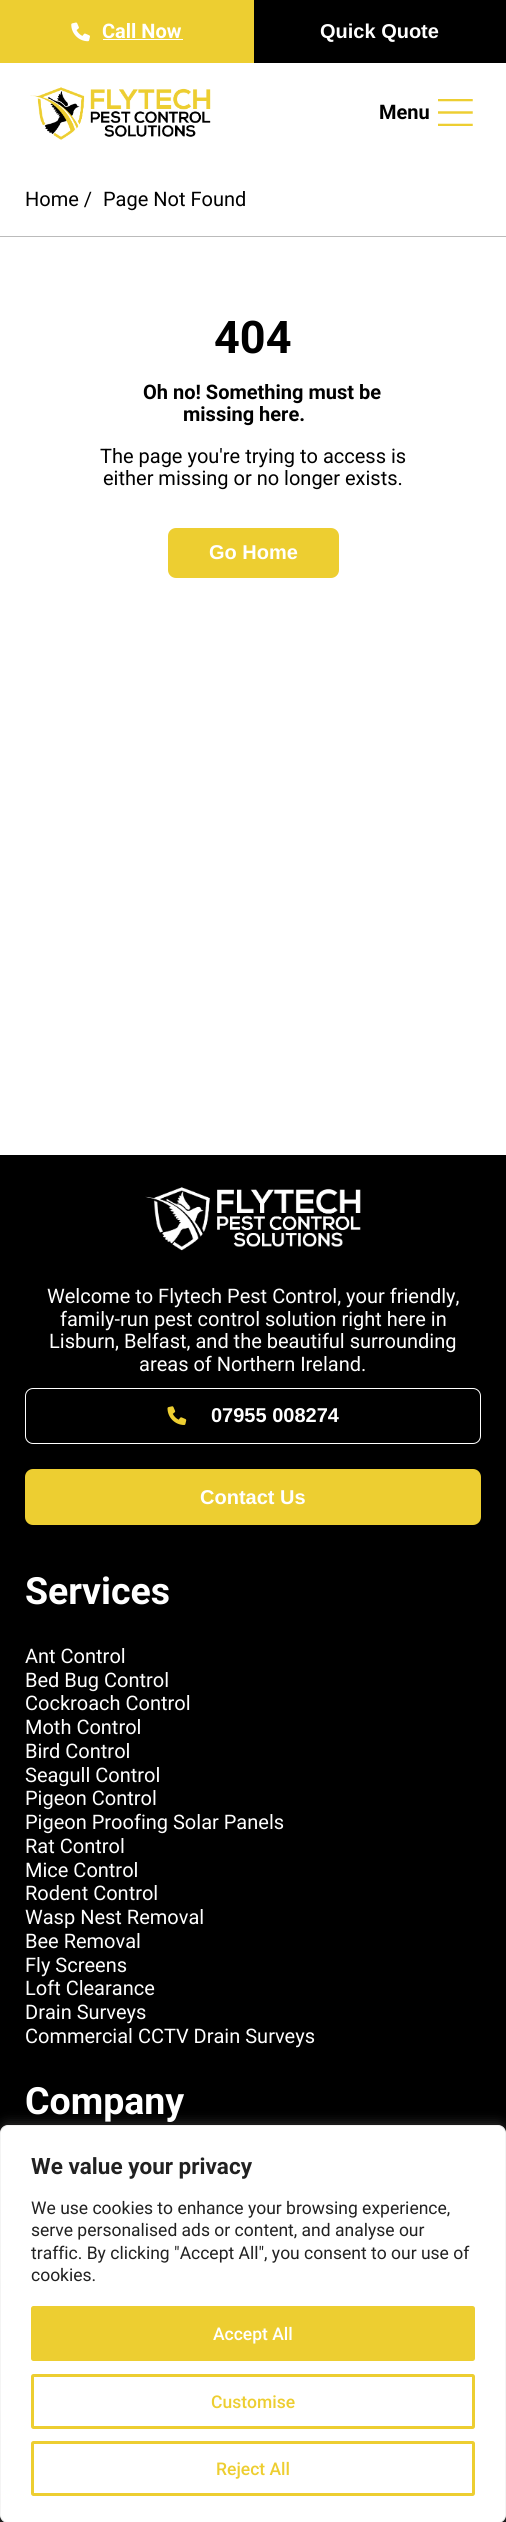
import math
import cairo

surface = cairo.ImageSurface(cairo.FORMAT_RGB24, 506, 2522)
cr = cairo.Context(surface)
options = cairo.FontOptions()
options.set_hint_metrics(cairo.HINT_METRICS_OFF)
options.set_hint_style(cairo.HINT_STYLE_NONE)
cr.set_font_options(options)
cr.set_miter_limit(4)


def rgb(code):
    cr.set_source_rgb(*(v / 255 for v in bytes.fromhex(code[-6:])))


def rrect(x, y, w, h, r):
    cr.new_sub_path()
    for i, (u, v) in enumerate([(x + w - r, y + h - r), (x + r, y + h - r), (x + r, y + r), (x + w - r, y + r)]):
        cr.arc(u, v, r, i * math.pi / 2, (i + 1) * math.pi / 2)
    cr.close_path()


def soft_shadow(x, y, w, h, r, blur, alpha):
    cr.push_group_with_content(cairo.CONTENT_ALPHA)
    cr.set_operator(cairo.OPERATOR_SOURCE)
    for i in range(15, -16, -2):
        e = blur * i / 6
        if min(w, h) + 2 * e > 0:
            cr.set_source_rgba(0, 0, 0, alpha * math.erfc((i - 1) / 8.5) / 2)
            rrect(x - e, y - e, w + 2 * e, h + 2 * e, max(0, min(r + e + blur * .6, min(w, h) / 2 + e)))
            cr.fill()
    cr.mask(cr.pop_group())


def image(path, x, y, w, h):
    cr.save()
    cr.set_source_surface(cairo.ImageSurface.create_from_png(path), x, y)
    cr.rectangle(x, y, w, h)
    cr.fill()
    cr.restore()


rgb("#ffffff")
cr.paint()
rgb("#000000")
cr.rectangle(254, 0, 252, 63)
cr.fill()
rgb("#edce31")
cr.rectangle(0, 0, 254, 63)
cr.fill()
image("img/1.png", 71, 22, 19, 20)
rgb("#ffffff")
cr.rectangle(103, 39, 80, 1)
cr.fill()
image("img/2.png", 30, 87, 181, 53)
cr.save()
cr.rectangle(438, 99, 36, 27)
cr.clip()
cr.new_path()
cr.move_to(439, 100)
cr.line_to(471.5, 100)
cr.move_to(439, 112.5)
cr.line_to(471.5, 112.5)
cr.move_to(439, 125)
cr.line_to(471.5, 125)
rgb("#edce31")
cr.set_line_width(2.5)
cr.set_line_cap(cairo.LINE_CAP_SQUARE)
cr.set_line_join(cairo.LINE_JOIN_ROUND)
cr.stroke()
cr.restore()
rgb("#bbbbbb")
cr.rectangle(0, 236, 506, 1)
cr.fill()
rgb("#edce31")
rrect(168, 528, 171, 50, 8)
cr.fill()
rgb("#000000")
cr.rectangle(0, 1155, 506, 978)
cr.fill()
image("img/3.png", 145, 1187, 216, 64)
rrect(25.5, 1388.5, 455, 55, 7.5)
rgb("#ffffff")
cr.set_line_width(1)
cr.stroke()
image("img/4.png", 167, 1406, 20, 19)
rgb("#edce31")
rrect(25, 1469, 456, 56, 8)
cr.fill()
rgb("#111111")
cr.rectangle(0, 2515, 506, 7)
cr.fill()
rgb("#acabab")
soft_shadow(0, 2124, 506, 397, 8, 6, 0.3)
rgb("#ffffff")
rrect(0.5, 2125.5, 505, 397, 7.5)
cr.fill_preserve()
rgb("#f4f4f4")
cr.stroke()
rgb("#edce31")
rrect(32.5, 2307.5, 441, 52, 1)
cr.fill_preserve()
cr.set_line_width(3)
cr.stroke()
rrect(32.5, 2375.5, 441, 52, 1)
cr.stroke()
rrect(32.5, 2442.5, 441, 52, 1)
cr.stroke()
cr.select_font_face("Roboto", cairo.FONT_SLANT_NORMAL, cairo.FONT_WEIGHT_BOLD)
cr.set_font_size(20)
rgb("#ffffff")
cr.move_to(102, 38)
cr.show_text("Call Now")
cr.select_font_face("Liberation Sans", cairo.FONT_SLANT_NORMAL, cairo.FONT_WEIGHT_BOLD)
cr.move_to(320, 38)
cr.show_text("Quick Quote")
cr.select_font_face("Roboto", cairo.FONT_SLANT_NORMAL, cairo.FONT_WEIGHT_BOLD)
rgb("#000000")
cr.move_to(379, 119)
cr.show_text("Menu")
cr.select_font_face("Roboto")
cr.move_to(25, 206)
cr.show_text("Home /")
cr.move_to(103, 206)
cr.show_text("Page Not Found")
cr.select_font_face("Roboto", cairo.FONT_SLANT_NORMAL, cairo.FONT_WEIGHT_BOLD)
cr.set_font_size(45)
cr.move_to(214, 353)
cr.show_text("404")
cr.set_font_size(20)
cr.move_to(143, 399)
cr.show_text("Oh no! Something must be")
cr.move_to(183, 421)
cr.show_text("missing here.")
cr.select_font_face("Roboto")
cr.move_to(100, 463)
cr.show_text("The page you're trying to access is")
cr.move_to(103, 485)
cr.show_text("either missing or no longer exists.")
cr.select_font_face("Liberation Sans", cairo.FONT_SLANT_NORMAL, cairo.FONT_WEIGHT_BOLD)
rgb("#ffffff")
cr.move_to(209, 559)
cr.show_text("Go Home")
cr.select_font_face("Roboto")
for x, y, s in [
    (47, 1303, "Welcome to Flytech Pest Control, your friendly,"),
    (60, 1326, "family-run pest control solution right here in"),
    (49, 1348, "Lisburn, Belfast, and the beautiful surrounding"),
    (139, 1371, "areas of Northern Ireland."),
]:
    cr.move_to(x, y)
    cr.show_text(s)
cr.select_font_face("Liberation Sans", cairo.FONT_SLANT_NORMAL, cairo.FONT_WEIGHT_BOLD)
cr.move_to(211, 1422)
cr.show_text("07955 008274")
cr.move_to(200, 1504)
cr.show_text("Contact Us")
cr.select_font_face("Roboto", cairo.FONT_SLANT_NORMAL, cairo.FONT_WEIGHT_BOLD)
cr.set_font_size(37.5)
cr.move_to(25, 1604)
cr.show_text("Services")
cr.select_font_face("Roboto")
cr.set_font_size(20)
for x, y, s in [
    (25, 1663, "Ant Control"),
    (25, 1687, "Bed Bug Control"),
    (25, 1710, "Cockroach Control"),
    (25, 1734, "Moth Control"),
    (25, 1758, "Bird Control"),
    (25, 1782, "Seagull Control"),
    (25, 1805, "Pigeon Control"),
    (25, 1829, "Pigeon Proofing Solar Panels"),
    (25, 1853, "Rat Control"),
    (25, 1877, "Mice Control"),
    (25, 1900, "Rodent Control"),
    (25, 1924, "Wasp Nest Removal"),
    (25, 1948, "Bee Removal"),
    (25, 1972, "Fly Screens"),
    (25, 1995, "Loft Clearance"),
    (25, 2019, "Drain Surveys"),
    (25, 2043, "Commercial CCTV Drain Surveys"),
]:
    cr.move_to(x, y)
    cr.show_text(s)
cr.select_font_face("Roboto", cairo.FONT_SLANT_NORMAL, cairo.FONT_WEIGHT_BOLD)
cr.set_font_size(37.5)
cr.move_to(25, 2114)
cr.show_text("Company")
cr.set_font_size(22.5)
rgb("#212121")
cr.move_to(31, 2174)
cr.show_text("We value your privacy")
cr.select_font_face("Roboto")
cr.set_font_size(17.5)
for x, y, s in [
    (31, 2214, "We use cookies to enhance your browsing experience,"),
    (31, 2236, "serve personalised ads or content, and analyse our"),
    (31, 2259, "traffic. By clicking \"Accept All\", you consent to our use of"),
    (31, 2281, "cookies."),
]:
    cr.move_to(x, y)
    cr.show_text(s)
cr.select_font_face("Roboto Medium")
rgb("#ffffff")
cr.move_to(213, 2340)
cr.show_text("Accept All")
rgb("#edce31")
cr.move_to(211, 2408)
cr.show_text("Customise")
cr.move_to(216, 2475)
cr.show_text("Reject All")
surface.write_to_png("page.png")
